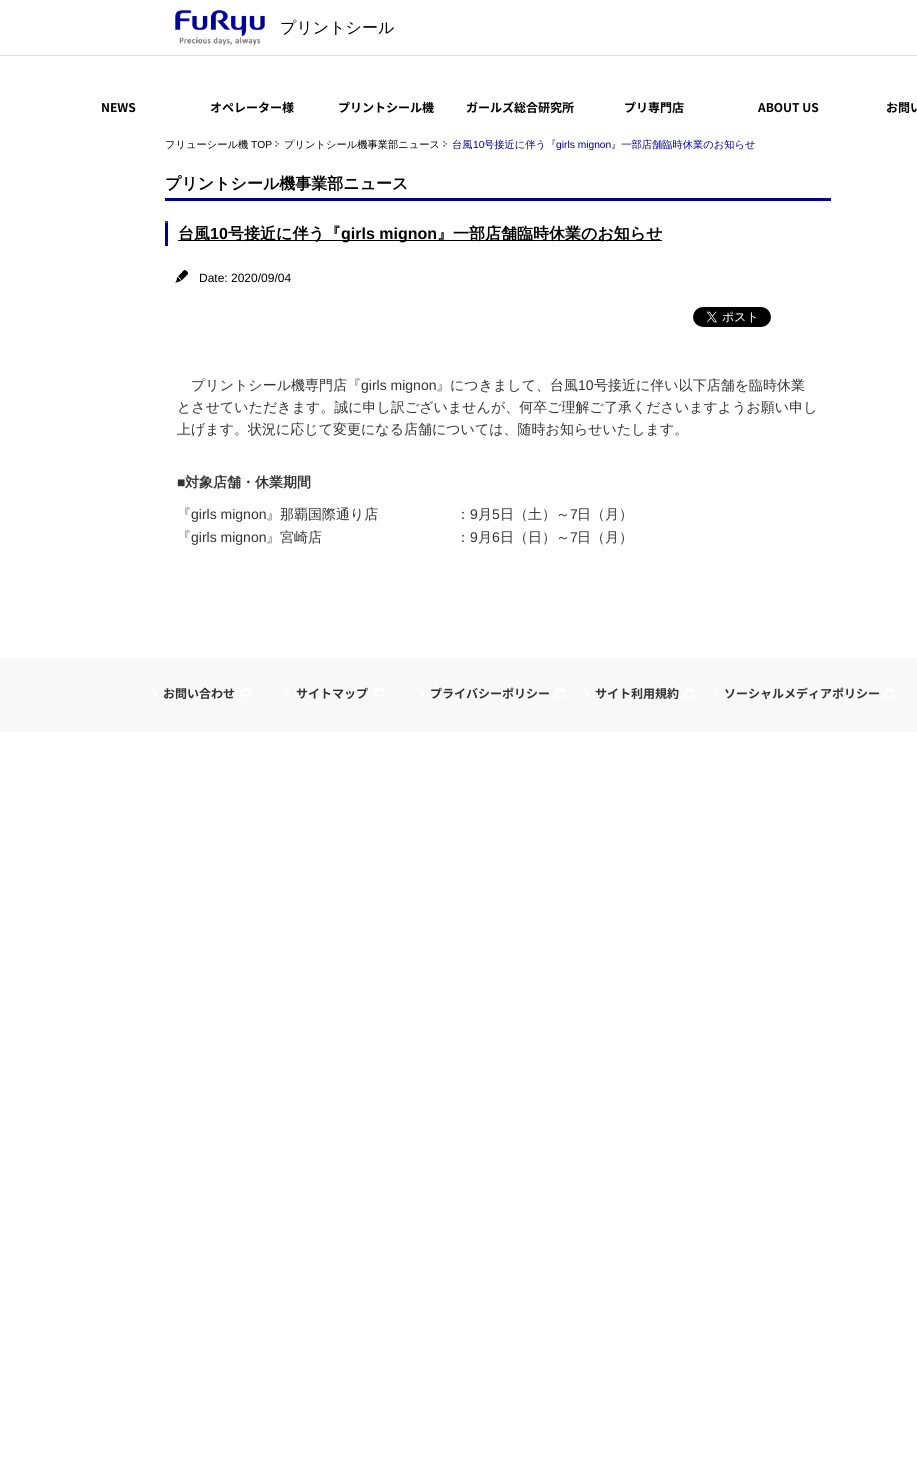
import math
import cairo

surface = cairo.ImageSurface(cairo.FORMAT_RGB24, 917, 1471)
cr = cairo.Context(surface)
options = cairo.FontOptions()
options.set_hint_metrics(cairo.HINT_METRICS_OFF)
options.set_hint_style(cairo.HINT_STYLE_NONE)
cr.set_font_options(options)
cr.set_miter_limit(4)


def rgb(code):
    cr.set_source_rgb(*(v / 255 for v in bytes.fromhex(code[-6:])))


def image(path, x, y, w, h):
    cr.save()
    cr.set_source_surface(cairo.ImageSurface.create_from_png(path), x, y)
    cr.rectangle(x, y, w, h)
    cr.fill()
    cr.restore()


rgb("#ffffff")
cr.paint()
rgb("#dddddd")
cr.rectangle(0, 55, 917, 1)
cr.fill()
image("img/1.png", 175, 10, 90, 35)
image("img/2.png", 275, 141, 4, 6)
image("img/2.png", 443, 141, 4, 6)
rgb("#000099")
cr.rectangle(165, 198, 666, 3)
cr.fill()
image("img/3.png", 165, 221, 3, 25)
rgb("#000000")
cr.rectangle(178, 240, 484, 1)
cr.fill()
image("img/4.png", 175, 270, 13, 13)
image("img/5.png", 693, 307, 78, 20)
rgb("#f8f8f8")
cr.rectangle(0, 658, 917, 74)
cr.fill()
image("img/6.png", 151, 689, 6, 9)
image("img/7.png", 240, 688, 11, 10)
image("img/8.png", 284, 689, 5, 9)
image("img/7.png", 373, 688, 11, 10)
image("img/6.png", 418, 689, 6, 9)
image("img/7.png", 554, 689, 11, 10)
image("img/6.png", 583, 689, 6, 9)
image("img/7.png", 683, 689, 11, 10)
image("img/6.png", 712, 689, 6, 9)
image("img/7.png", 883, 689, 11, 10)
cr.select_font_face("WenQuanYi Zen Hei Medium")
cr.set_font_size(16)
rgb("#000000")
cr.move_to(280, 33)
cr.show_text("プリントシール")
cr.select_font_face("Noto Sans JP", cairo.FONT_SLANT_NORMAL, cairo.FONT_WEIGHT_BOLD)
cr.set_font_size(12)
for x, y, s in [
    (101, 112, "NEWS"),
    (210, 112, "オペレーター様"),
    (338, 112, "プリントシール機"),
    (466, 112, "ガールズ総合研究所"),
    (624, 112, "プリ専門店"),
    (758, 112, "ABOUT US"),
    (886, 112, "お問い"),
]:
    cr.move_to(x, y)
    cr.show_text(s)
cr.select_font_face("WenQuanYi Zen Hei Medium")
cr.set_font_size(10.25)
cr.move_to(165, 148)
cr.show_text("フリューシール機")
cr.select_font_face("Liberation Sans")
cr.move_to(251, 148)
cr.show_text("TOP")
cr.select_font_face("WenQuanYi Zen Hei Medium")
cr.move_to(284, 148)
cr.show_text("プリントシール機事業部ニュース")
rgb("#000099")
cr.move_to(452, 148)
cr.show_text("台風")
cr.select_font_face("Liberation Sans")
cr.move_to(473, 148)
cr.show_text("10")
cr.select_font_face("WenQuanYi Zen Hei Medium")
cr.move_to(484, 148)
cr.show_text("号接近に伴う『")
cr.select_font_face("Liberation Sans")
cr.move_to(556, 148)
cr.show_text("girls mignon")
cr.select_font_face("WenQuanYi Zen Hei Medium")
cr.move_to(611, 148)
cr.show_text("』一部店舗臨時休業のお知らせ")
cr.select_font_face("WenQuanYi Zen Hei", cairo.FONT_SLANT_NORMAL, cairo.FONT_WEIGHT_BOLD)
cr.set_font_size(16)
rgb("#000000")
cr.move_to(165, 189)
cr.show_text("プリントシール機事業部ニュース")
cr.move_to(178, 239)
cr.show_text("台風")
cr.select_font_face("Liberation Sans", cairo.FONT_SLANT_NORMAL, cairo.FONT_WEIGHT_BOLD)
cr.move_to(210, 239)
cr.show_text("10")
cr.select_font_face("WenQuanYi Zen Hei", cairo.FONT_SLANT_NORMAL, cairo.FONT_WEIGHT_BOLD)
cr.move_to(228, 239)
cr.show_text("号接近に伴う『")
cr.select_font_face("Liberation Sans", cairo.FONT_SLANT_NORMAL, cairo.FONT_WEIGHT_BOLD)
cr.move_to(341, 239)
cr.show_text("girls mignon")
cr.select_font_face("WenQuanYi Zen Hei", cairo.FONT_SLANT_NORMAL, cairo.FONT_WEIGHT_BOLD)
cr.move_to(437, 239)
cr.show_text("』一部店舗臨時休業のお知らせ")
cr.select_font_face("Liberation Sans")
cr.set_font_size(12)
cr.move_to(199, 282)
cr.show_text("Date: 2020/09/04")
cr.select_font_face("WenQuanYi Zen Hei Medium")
cr.set_font_size(14)
rgb("#333333")
cr.move_to(191, 390)
cr.show_text("プリントシール機専門店『")
cr.select_font_face("Liberation Sans")
cr.move_to(361, 390)
cr.show_text("girls mignon")
cr.select_font_face("WenQuanYi Zen Hei Medium")
cr.move_to(436, 390)
cr.show_text("』につきまして、台風")
cr.select_font_face("Liberation Sans")
cr.move_to(578, 390)
cr.show_text("10")
cr.select_font_face("WenQuanYi Zen Hei Medium")
for x, y, s in [
    (594, 390, "号接近に伴い以下店舗を臨時休業"),
    (177, 412, "とさせていただきます。誠に申し訳ございませんが、何卒ご理解ご了承くださいますようお願い申し"),
    (177, 434, "上げます。状況に応じて変更になる店舗については、随時お知らせいたします。"),
]:
    cr.move_to(x, y)
    cr.show_text(s)
cr.select_font_face("Liberation Sans", cairo.FONT_SLANT_NORMAL, cairo.FONT_WEIGHT_BOLD)
cr.move_to(177, 487)
cr.show_text("■")
cr.select_font_face("WenQuanYi Zen Hei", cairo.FONT_SLANT_NORMAL, cairo.FONT_WEIGHT_BOLD)
cr.move_to(185, 487)
cr.show_text("対象店舗・休業期間")
cr.select_font_face("WenQuanYi Zen Hei Medium")
cr.move_to(177, 519)
cr.show_text("『")
cr.select_font_face("Liberation Sans")
cr.move_to(191, 519)
cr.show_text("girls mignon")
cr.select_font_face("WenQuanYi Zen Hei Medium")
cr.move_to(266, 519)
cr.show_text("』那覇国際通り店")
cr.move_to(456, 519)
cr.show_text("：")
cr.select_font_face("Liberation Sans")
cr.move_to(470, 519)
cr.show_text("9")
cr.select_font_face("WenQuanYi Zen Hei Medium")
cr.move_to(478, 519)
cr.show_text("月")
cr.select_font_face("Liberation Sans")
cr.move_to(492, 519)
cr.show_text("5")
cr.select_font_face("WenQuanYi Zen Hei Medium")
cr.move_to(500, 519)
cr.show_text("日（土）～")
cr.select_font_face("Liberation Sans")
cr.move_to(570, 519)
cr.show_text("7")
cr.select_font_face("WenQuanYi Zen Hei Medium")
cr.move_to(577, 519)
cr.show_text("日（月）")
cr.move_to(177, 542)
cr.show_text("『")
cr.select_font_face("Liberation Sans")
cr.move_to(191, 542)
cr.show_text("girls mignon")
cr.select_font_face("WenQuanYi Zen Hei Medium")
cr.move_to(266, 542)
cr.show_text("』宮崎店")
cr.move_to(456, 542)
cr.show_text("：")
cr.select_font_face("Liberation Sans")
cr.move_to(470, 542)
cr.show_text("9")
cr.select_font_face("WenQuanYi Zen Hei Medium")
cr.move_to(478, 542)
cr.show_text("月")
cr.select_font_face("Liberation Sans")
cr.move_to(492, 542)
cr.show_text("6")
cr.select_font_face("WenQuanYi Zen Hei Medium")
cr.move_to(500, 542)
cr.show_text("日（日）～")
cr.select_font_face("Liberation Sans")
cr.move_to(570, 542)
cr.show_text("7")
cr.select_font_face("WenQuanYi Zen Hei Medium")
cr.move_to(577, 542)
cr.show_text("日（月）")
cr.select_font_face("Noto Sans JP", cairo.FONT_SLANT_NORMAL, cairo.FONT_WEIGHT_BOLD)
cr.set_font_size(12)
for x, y, s in [
    (163, 698, "お問い合わせ"),
    (296, 698, "サイトマップ"),
    (430, 698, "プライバシーポリシー"),
    (595, 698, "サイト利用規約"),
    (724, 698, "ソーシャルメディアポリシー"),
]:
    cr.move_to(x, y)
    cr.show_text(s)
surface.write_to_png("page.png")
